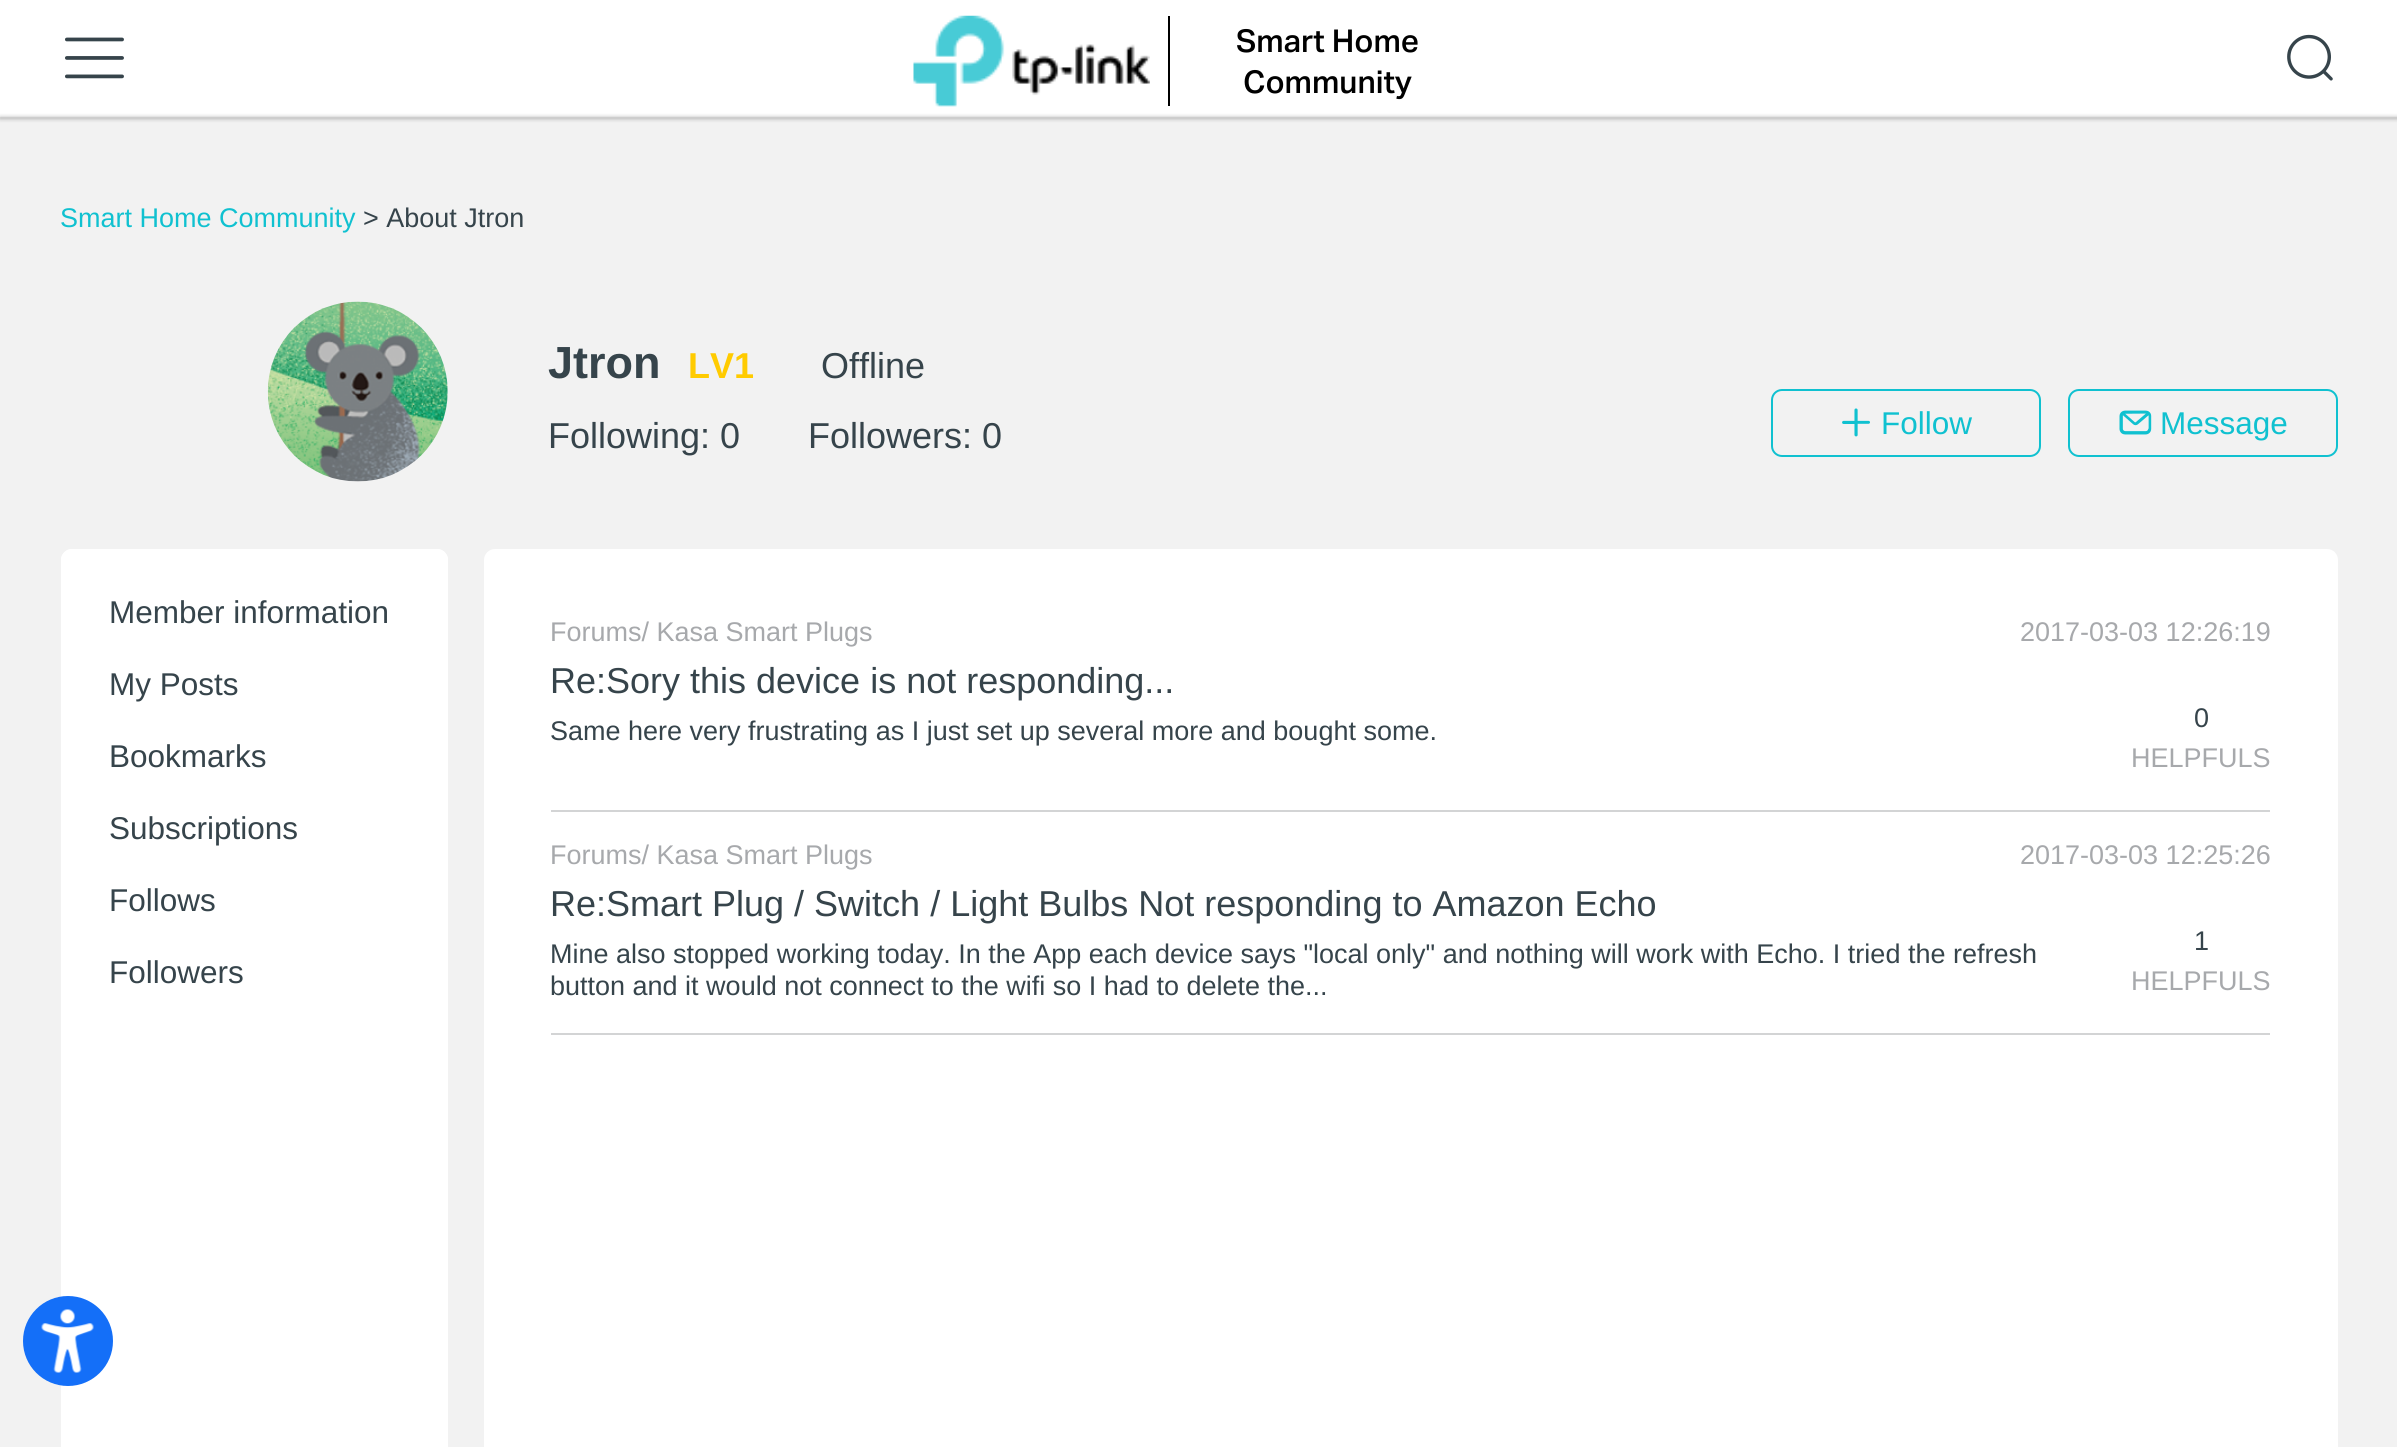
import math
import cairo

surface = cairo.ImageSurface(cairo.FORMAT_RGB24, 2397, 1447)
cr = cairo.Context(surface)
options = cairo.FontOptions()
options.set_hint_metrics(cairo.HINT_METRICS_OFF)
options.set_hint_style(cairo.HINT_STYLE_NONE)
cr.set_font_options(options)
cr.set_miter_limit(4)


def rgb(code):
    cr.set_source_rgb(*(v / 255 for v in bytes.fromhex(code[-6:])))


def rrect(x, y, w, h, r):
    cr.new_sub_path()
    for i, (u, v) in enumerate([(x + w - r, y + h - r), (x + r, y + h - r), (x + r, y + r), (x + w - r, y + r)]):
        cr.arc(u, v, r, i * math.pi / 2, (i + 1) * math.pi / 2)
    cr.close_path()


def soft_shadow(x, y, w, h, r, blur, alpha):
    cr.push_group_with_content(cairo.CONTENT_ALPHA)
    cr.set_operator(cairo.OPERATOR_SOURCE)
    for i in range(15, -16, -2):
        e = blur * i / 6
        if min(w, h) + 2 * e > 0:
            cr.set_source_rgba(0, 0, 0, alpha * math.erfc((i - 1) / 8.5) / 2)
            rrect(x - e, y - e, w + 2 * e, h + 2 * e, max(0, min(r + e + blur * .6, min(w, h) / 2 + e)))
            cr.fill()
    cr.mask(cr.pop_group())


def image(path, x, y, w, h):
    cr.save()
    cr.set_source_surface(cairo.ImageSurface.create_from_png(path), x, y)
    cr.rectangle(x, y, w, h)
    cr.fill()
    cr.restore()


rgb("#f2f2f2")
cr.paint()
rgb("#ffffff")
cr.rectangle(0, 0, 2397, 117)
cr.fill()
image("img/1.png", 65, 37, 59, 42)
image("img/2.png", 913, 15, 237, 92)
rgb("#000000")
cr.rectangle(1168, 16, 2, 90)
cr.fill()
image("img/3.png", 2287, 34, 46, 47)
rgb("#212121")
soft_shadow(0, 117, 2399, 2, 0, 2, 0.3)
image("img/4.png", 267, 301, 181, 181)
rrect(1772, 390, 268, 66, 10)
rgb("#10c1d0")
cr.stroke()
image("img/5.png", 1842, 408, 28, 29)
rrect(2069, 390, 268, 66, 10)
cr.stroke()
image("img/6.png", 2119, 410, 33, 25)
rgb("#ffffff")
rrect(61, 549, 387, 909, 11)
cr.fill()
rrect(61, 549, 387, 486, 11)
cr.fill()
rrect(484, 549, 1854, 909, 11)
cr.fill()
rgb("#d3d4d5")
cr.rectangle(551, 810, 1719, 2)
cr.fill()
cr.rectangle(551, 1033, 1719, 2)
cr.fill()
rgb("#146ff8")
cr.arc(68, 1341, 45, 0, 2 * math.pi)
cr.fill()
image("img/7.png", 41, 1309, 53, 64)
cr.select_font_face("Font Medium")
cr.set_font_size(31.5)
rgb("#000000")
cr.move_to(1236, 52)
cr.show_text("Smart Home")
cr.move_to(1243, 93)
cr.show_text("Community")
cr.select_font_face("Liberation Sans")
cr.set_font_size(27)
rgb("#10c1d0")
cr.move_to(60, 227)
cr.show_text("Smart Home Community")
rgb("#36444b")
cr.move_to(363, 227)
cr.show_text("> About Jtron")
cr.select_font_face("Liberation Sans", cairo.FONT_SLANT_NORMAL, cairo.FONT_WEIGHT_BOLD)
cr.set_font_size(45)
cr.move_to(548, 378)
cr.show_text("Jtron")
cr.set_font_size(36)
rgb("#ffcb00")
cr.move_to(688, 378)
cr.show_text("LV1")
cr.select_font_face("Liberation Sans")
rgb("#36444b")
for x, y, s in [
    (821, 378, "Offline"),
    (548, 448, "Following: 0"),
    (808, 448, "Followers: 0"),
]:
    cr.move_to(x, y)
    cr.show_text(s)
cr.set_font_size(31.5)
rgb("#10c1d0")
cr.move_to(1881, 434)
cr.show_text("Follow")
cr.move_to(2160, 434)
cr.show_text("Message")
rgb("#36444b")
for x, y, s in [
    (109, 623, "Member information"),
    (109, 695, "My Posts"),
    (109, 767, "Bookmarks"),
    (109, 839, "Subscriptions"),
    (109, 911, "Follows"),
    (109, 983, "Followers"),
]:
    cr.move_to(x, y)
    cr.show_text(s)
cr.set_font_size(27)
rgb("#a7a9ac")
cr.move_to(550, 641)
cr.show_text("Forums/ Kasa Smart Plugs")
cr.move_to(2020, 641)
cr.show_text("2017-03-03 12:26:19")
cr.set_font_size(36)
rgb("#36444b")
cr.move_to(550, 693)
cr.show_text("Re:Sory this device is not responding...")
cr.set_font_size(27)
cr.move_to(550, 740)
cr.show_text("Same here very frustrating as I just set up several more and bought some.")
cr.move_to(2194, 727)
cr.show_text("0")
rgb("#a7a9ac")
for x, y, s in [
    (2131, 767, "HELPFULS"),
    (550, 864, "Forums/ Kasa Smart Plugs"),
    (2020, 864, "2017-03-03 12:25:26"),
]:
    cr.move_to(x, y)
    cr.show_text(s)
cr.set_font_size(36)
rgb("#36444b")
cr.move_to(550, 916)
cr.show_text("Re:Smart Plug / Switch / Light Bulbs Not responding to Amazon Echo")
cr.set_font_size(27)
for x, y, s in [
    (550, 963, "Mine also stopped working today. In the App each device says \"local only\" and nothing will work with Echo. I tried the refresh"),
    (550, 995, "button and it would not connect to the wifi so I had to delete the..."),
    (2194, 950, "1"),
]:
    cr.move_to(x, y)
    cr.show_text(s)
rgb("#a7a9ac")
cr.move_to(2131, 990)
cr.show_text("HELPFULS")
surface.write_to_png("page.png")
